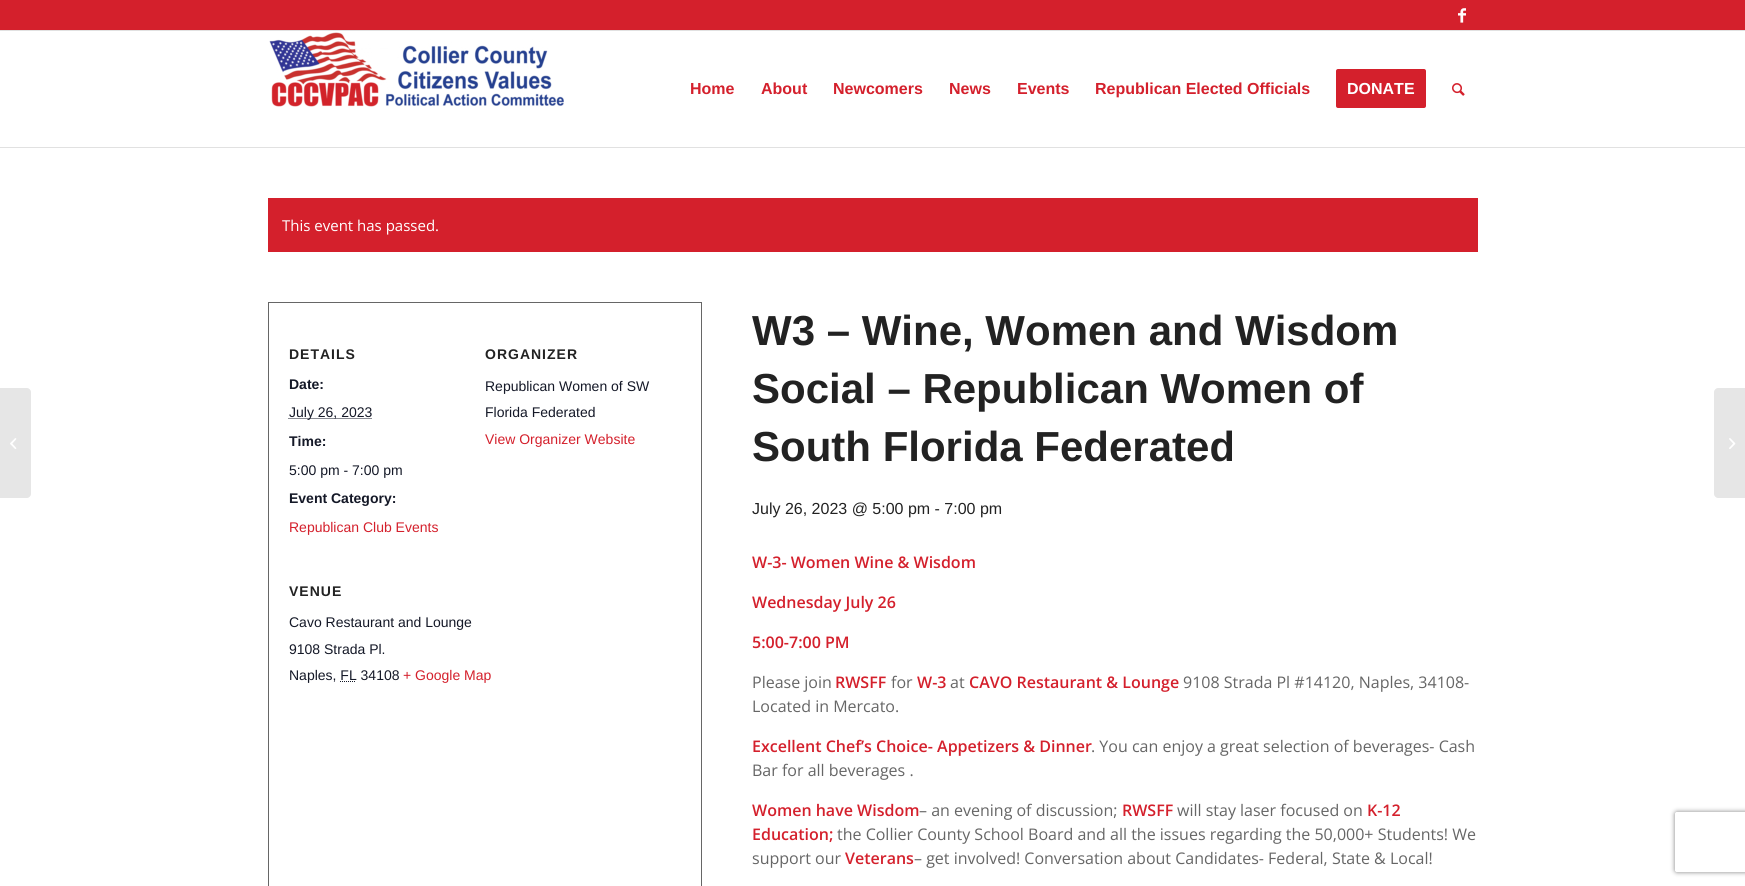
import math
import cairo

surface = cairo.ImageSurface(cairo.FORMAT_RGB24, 1745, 886)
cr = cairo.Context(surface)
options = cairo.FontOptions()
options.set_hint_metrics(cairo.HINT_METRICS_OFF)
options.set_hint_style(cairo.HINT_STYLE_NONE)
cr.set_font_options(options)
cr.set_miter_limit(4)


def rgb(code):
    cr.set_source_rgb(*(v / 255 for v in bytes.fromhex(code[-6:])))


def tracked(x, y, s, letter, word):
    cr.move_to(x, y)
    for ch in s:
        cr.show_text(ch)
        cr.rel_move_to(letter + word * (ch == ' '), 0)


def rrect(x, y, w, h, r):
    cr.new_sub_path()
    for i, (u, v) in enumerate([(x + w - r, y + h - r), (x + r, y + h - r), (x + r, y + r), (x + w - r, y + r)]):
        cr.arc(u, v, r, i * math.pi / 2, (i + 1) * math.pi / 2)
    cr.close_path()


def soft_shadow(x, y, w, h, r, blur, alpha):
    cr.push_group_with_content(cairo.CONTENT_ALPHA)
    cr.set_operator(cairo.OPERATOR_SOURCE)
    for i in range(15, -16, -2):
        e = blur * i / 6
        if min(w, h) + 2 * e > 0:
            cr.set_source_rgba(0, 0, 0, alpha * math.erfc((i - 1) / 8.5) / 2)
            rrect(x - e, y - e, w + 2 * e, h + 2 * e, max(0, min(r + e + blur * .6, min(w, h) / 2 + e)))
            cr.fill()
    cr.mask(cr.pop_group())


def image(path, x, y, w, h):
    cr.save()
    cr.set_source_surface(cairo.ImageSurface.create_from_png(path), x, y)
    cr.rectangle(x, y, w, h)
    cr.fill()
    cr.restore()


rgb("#ffffff")
cr.paint()
rgb("#d4202c")
cr.rectangle(0, 0, 1745, 30)
cr.fill()
rgb("#e1e1e1")
cr.rectangle(0, 30, 1745, 1)
cr.fill()
image("img/1.png", 1458, 8, 8, 15)
cr.rectangle(0, 147, 1745, 1)
cr.fill()
image("img/2.png", 269, 32, 295, 75)
rgb("#d4202c")
rrect(1337, 70, 88, 37, 1)
cr.fill_preserve()
cr.stroke()
image("img/3.png", 1452, 83, 13, 13)
rgb("#e6e6e6")
cr.new_path()
cr.move_to(0, 388)
cr.line_to(27, 388)
cr.curve_to(29, 388, 31, 390, 31, 392)
cr.line_to(31, 494)
cr.curve_to(31, 496, 29, 498, 27, 498)
cr.line_to(0, 498)
cr.close_path()
cr.fill()
image("img/4.png", 10, 438, 7, 11)
rgb("#d4202c")
cr.rectangle(268, 198, 1210, 54)
cr.fill()
cr.rectangle(268.5, 302.5, 433, 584)
rgb("#666666")
cr.set_line_width(1)
cr.stroke()
cr.new_path()
cr.move_to(288.5, 418.5)
cr.line_to(372, 418.5)
rgb("#141827")
cr.set_dash([1, 1])
cr.stroke()
cr.new_path()
cr.move_to(340, 681.5)
cr.line_to(356, 681.5)
cr.stroke()
rgb("#e6e6e6")
cr.new_path()
cr.move_to(1718, 388)
cr.line_to(1745, 388)
cr.line_to(1745, 498)
cr.line_to(1718, 498)
cr.curve_to(1716, 498, 1714, 496, 1714, 494)
cr.line_to(1714, 392)
cr.curve_to(1714, 390, 1716, 388, 1718, 388)
cr.close_path()
cr.fill()
image("img/5.png", 1729, 438, 7, 11)
cr.save()
cr.set_fill_rule(cairo.FILL_RULE_EVEN_ODD)
cr.new_path()
cr.move_to(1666, 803)
cr.line_to(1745, 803)
cr.line_to(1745, 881)
cr.line_to(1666, 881)
cr.close_path()
cr.move_to(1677, 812)
cr.line_to(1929, 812)
cr.curve_to(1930, 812, 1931, 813, 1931, 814)
cr.line_to(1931, 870)
cr.curve_to(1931, 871, 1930, 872, 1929, 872)
cr.line_to(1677, 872)
cr.curve_to(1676, 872, 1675, 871, 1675, 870)
cr.line_to(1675, 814)
cr.curve_to(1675, 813, 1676, 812, 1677, 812)
cr.close_path()
cr.clip()
rgb("#808080")
soft_shadow(1675, 812, 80, 60, 2, 2.5, 1)
cr.restore()
cr.select_font_face("Liberation Sans", cairo.FONT_SLANT_NORMAL, cairo.FONT_WEIGHT_BOLD)
cr.set_font_size(16)
rgb("#d4202c")
for x, y, s in [
    (690, 94, "Home"),
    (761, 94, "About"),
    (833, 94, "Newcomers"),
    (949, 94, "News"),
    (1017, 94, "Events"),
    (1095, 94, "Republican Elected Officials"),
]:
    cr.move_to(x, y)
    cr.show_text(s)
rgb("#ffffff")
cr.move_to(1347, 94)
cr.show_text("DONATE")
cr.select_font_face("Open Sans")
cr.set_font_size(15)
cr.move_to(282, 231)
cr.show_text("This event has passed.")
cr.select_font_face("Liberation Sans", cairo.FONT_SLANT_NORMAL, cairo.FONT_WEIGHT_BOLD)
cr.set_font_size(14)
rgb("#222222")
tracked(289, 359, "DETAILS", 1, 0)
rgb("#141827")
cr.move_to(289, 389)
cr.show_text("Date:")
cr.select_font_face("Liberation Sans")
cr.move_to(289, 417)
cr.show_text("July 26, 2023")
cr.select_font_face("Liberation Sans", cairo.FONT_SLANT_NORMAL, cairo.FONT_WEIGHT_BOLD)
cr.move_to(289, 446)
cr.show_text("Time:")
cr.select_font_face("Liberation Sans")
cr.move_to(289, 475)
cr.show_text("5:00 pm - 7:00 pm")
cr.select_font_face("Liberation Sans", cairo.FONT_SLANT_NORMAL, cairo.FONT_WEIGHT_BOLD)
cr.move_to(289, 503)
cr.show_text("Event Category:")
cr.select_font_face("Liberation Sans")
rgb("#d4202c")
cr.move_to(289, 532)
cr.show_text("Republican Club Events")
cr.select_font_face("Liberation Sans", cairo.FONT_SLANT_NORMAL, cairo.FONT_WEIGHT_BOLD)
rgb("#222222")
tracked(485, 359, "ORGANIZER", 1, 0)
cr.select_font_face("Liberation Sans")
rgb("#141827")
cr.move_to(485, 391)
cr.show_text("Republican Women of SW")
cr.move_to(485, 417)
cr.show_text("Florida Federated")
rgb("#d4202c")
cr.move_to(485, 444)
cr.show_text("View Organizer Website")
cr.select_font_face("Liberation Sans", cairo.FONT_SLANT_NORMAL, cairo.FONT_WEIGHT_BOLD)
rgb("#222222")
tracked(289, 596, "VENUE", 1, 0)
cr.select_font_face("Liberation Sans")
rgb("#141827")
for x, y, s in [
    (289, 627, "Cavo Restaurant and Lounge"),
    (289, 654, "9108 Strada Pl."),
    (289, 680, "Naples, FL 34108"),
]:
    cr.move_to(x, y)
    cr.show_text(s)
rgb("#d4202c")
cr.move_to(403, 680)
cr.show_text("+ Google Map")
cr.select_font_face("Liberation Sans", cairo.FONT_SLANT_NORMAL, cairo.FONT_WEIGHT_BOLD)
cr.set_font_size(42)
rgb("#222222")
for x, y, s in [
    (752, 345, "W3 – Wine, Women and Wisdom"),
    (752, 403, "Social – Republican Women of"),
    (752, 461, "South Florida Federated"),
]:
    cr.move_to(x, y)
    cr.show_text(s)
cr.select_font_face("Liberation Sans")
cr.set_font_size(16)
cr.move_to(752, 514)
cr.show_text("July 26, 2023 @ 5:00 pm - 7:00 pm")
cr.select_font_face("Open Sans SemiBold")
rgb("#d4202c")
for x, y, s in [
    (752, 568, "W-3- Women Wine & Wisdom"),
    (752, 608, "Wednesday July 26"),
    (752, 648, "5:00-7:00 PM"),
]:
    cr.move_to(x, y)
    cr.show_text(s)
cr.select_font_face("Open Sans")
rgb("#666666")
cr.move_to(752, 688)
cr.show_text("Please join")
cr.select_font_face("Open Sans SemiBold")
rgb("#d4202c")
cr.move_to(835, 688)
cr.show_text("RWSFF")
cr.select_font_face("Open Sans")
rgb("#666666")
cr.move_to(891, 688)
cr.show_text("for")
cr.select_font_face("Open Sans SemiBold")
rgb("#d4202c")
cr.move_to(917, 688)
cr.show_text("W-3")
cr.select_font_face("Open Sans")
rgb("#666666")
cr.move_to(950, 688)
cr.show_text("at")
cr.select_font_face("Open Sans SemiBold")
rgb("#d4202c")
cr.move_to(969, 688)
cr.show_text("CAVO Restaurant & Lounge")
cr.select_font_face("Open Sans")
rgb("#666666")
cr.move_to(1183, 688)
cr.show_text("9108 Strada Pl #14120, Naples, 34108-")
cr.move_to(752, 712)
cr.show_text("Located in Mercato.")
cr.select_font_face("Open Sans SemiBold")
rgb("#d4202c")
cr.move_to(752, 752)
cr.show_text("Excellent Chef’s Choice- Appetizers & Dinner")
cr.select_font_face("Open Sans")
rgb("#666666")
cr.move_to(1091, 752)
cr.show_text(". You can enjoy a great selection of beverages- Cash")
cr.move_to(752, 776)
cr.show_text("Bar for all beverages .")
cr.select_font_face("Open Sans SemiBold")
rgb("#d4202c")
cr.move_to(752, 816)
cr.show_text("Women have Wisdom")
cr.select_font_face("Open Sans")
rgb("#666666")
cr.move_to(919, 816)
cr.show_text("– an evening of discussion;")
cr.select_font_face("Open Sans SemiBold")
rgb("#d4202c")
cr.move_to(1122, 816)
cr.show_text("RWSFF")
cr.select_font_face("Open Sans")
rgb("#666666")
cr.move_to(1177, 816)
cr.show_text("will stay laser focused on")
cr.select_font_face("Open Sans SemiBold")
rgb("#d4202c")
cr.move_to(1367, 816)
cr.show_text("K-12")
cr.move_to(752, 840)
cr.show_text("Education;")
cr.select_font_face("Open Sans")
rgb("#666666")
cr.move_to(837, 840)
cr.show_text("the Collier County School Board and all the issues regarding the 50,000+ Students! We")
cr.move_to(752, 864)
cr.show_text("support our")
cr.select_font_face("Open Sans SemiBold")
rgb("#d4202c")
cr.move_to(845, 864)
cr.show_text("Veterans")
cr.select_font_face("Open Sans")
rgb("#666666")
cr.move_to(914, 864)
cr.show_text("– get involved! Conversation about Candidates- Federal, State & Local!")
surface.write_to_png("page.png")
